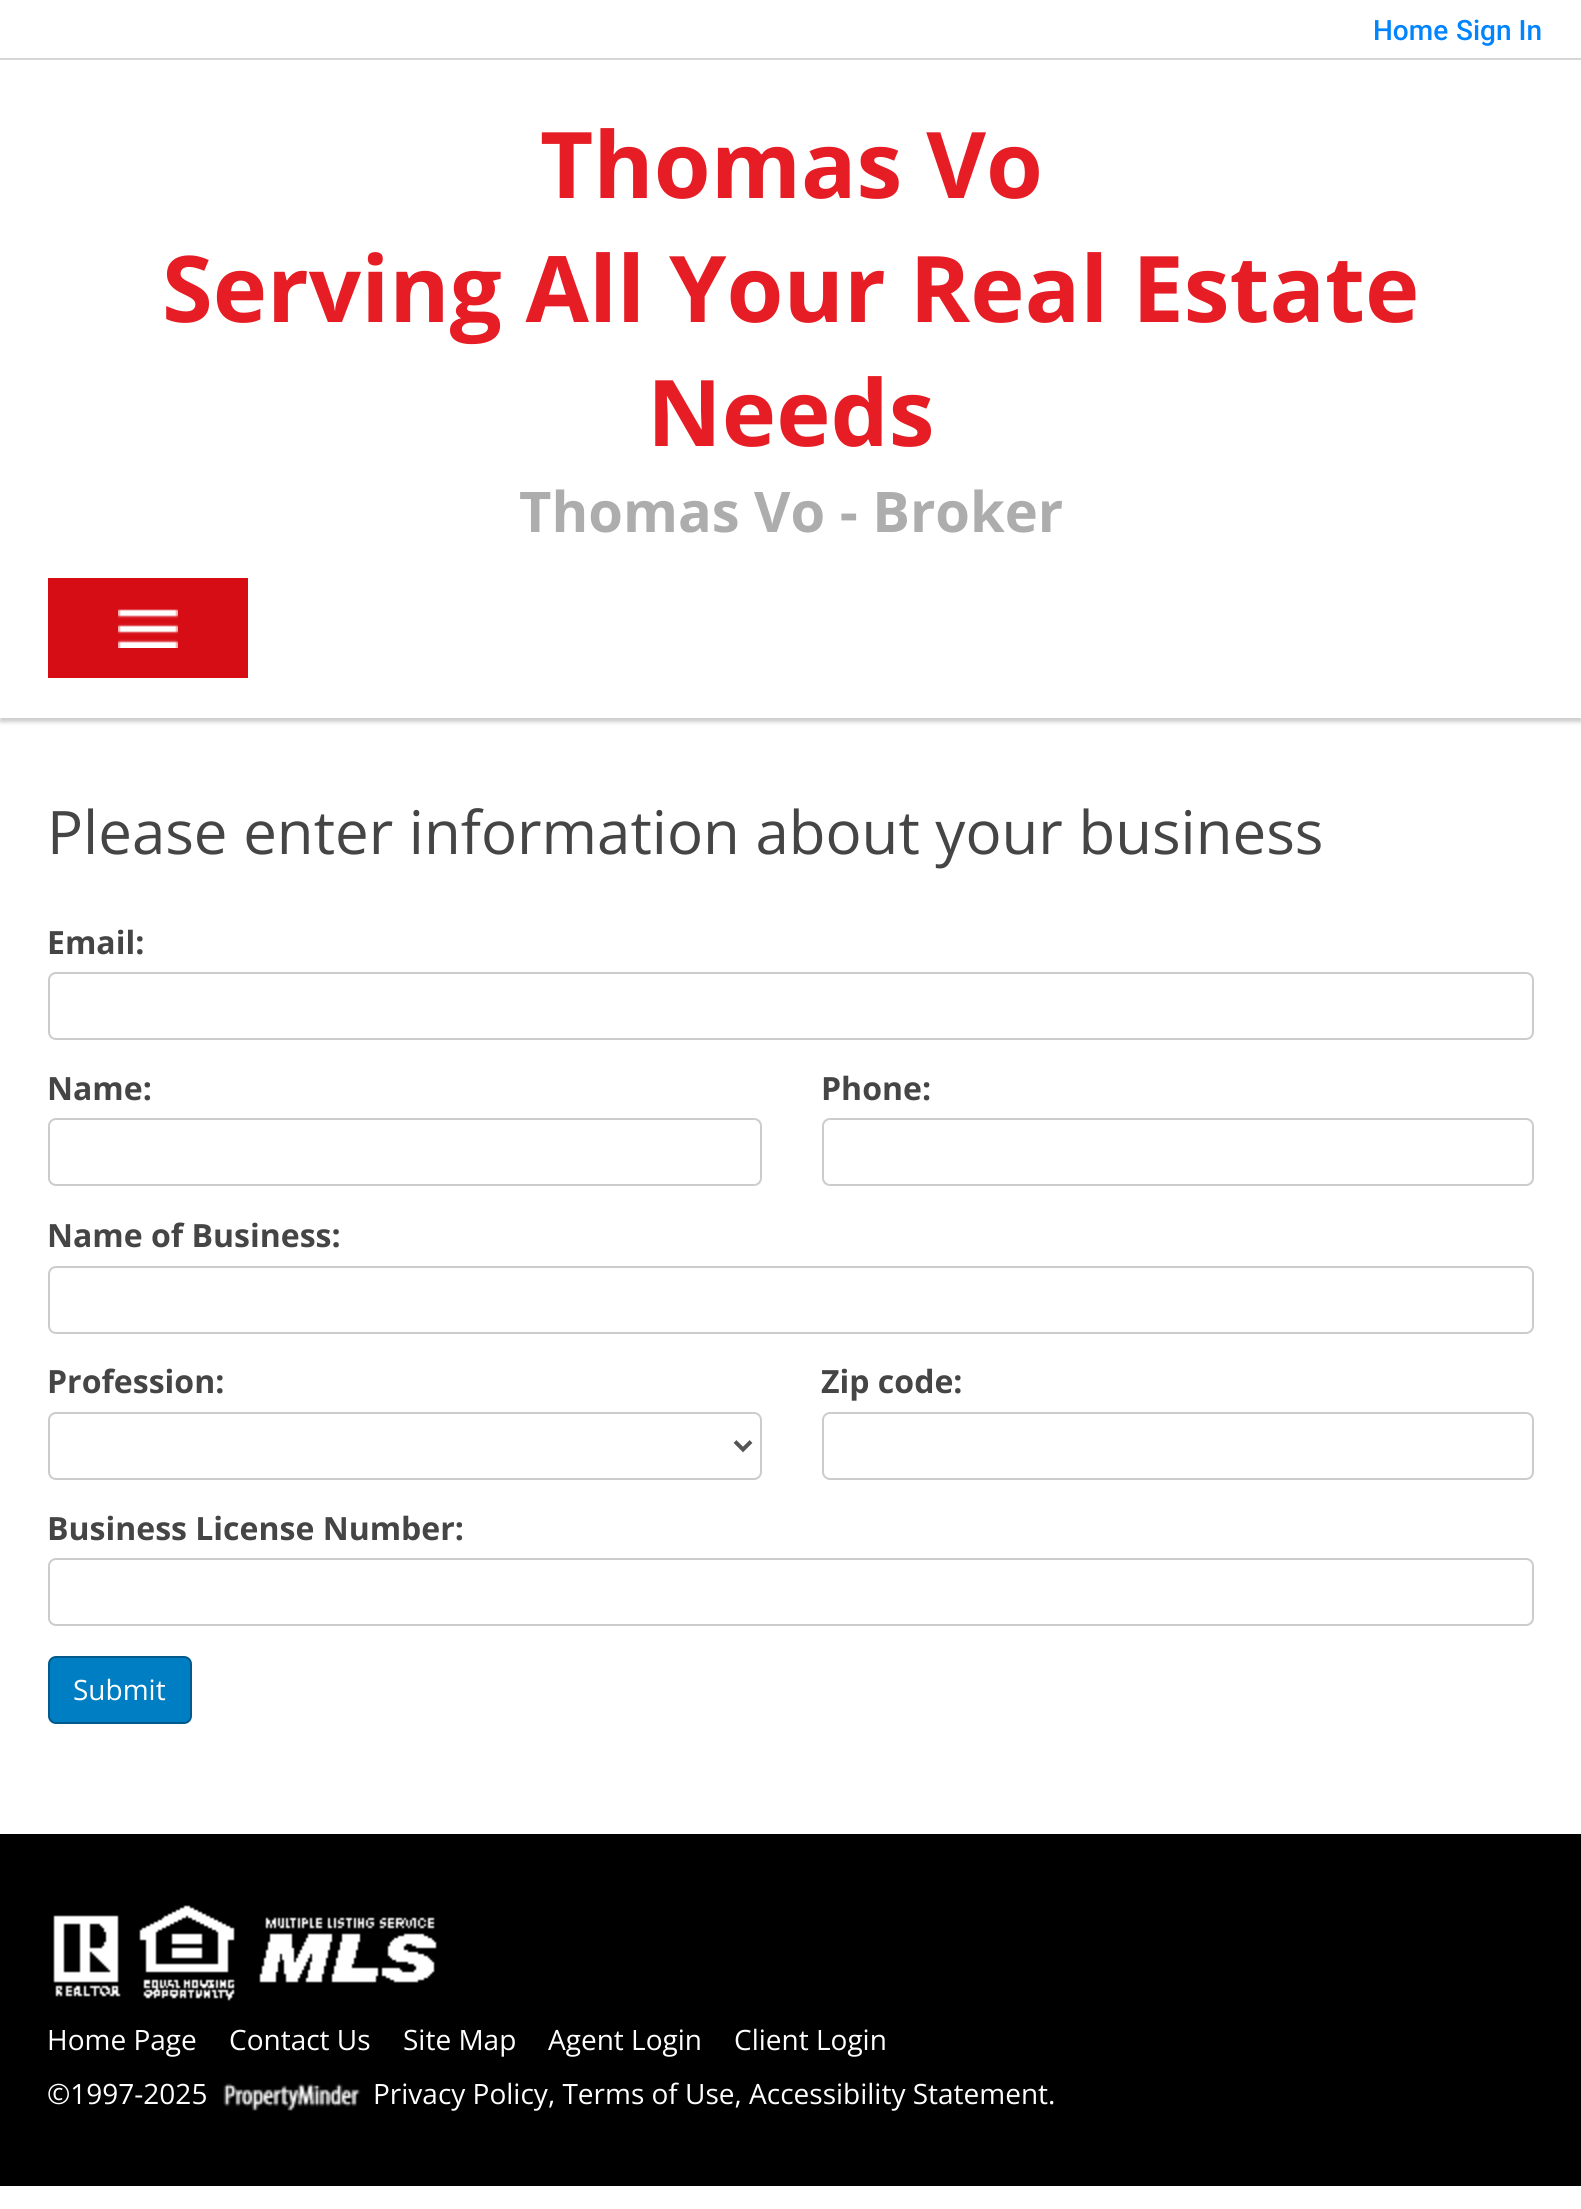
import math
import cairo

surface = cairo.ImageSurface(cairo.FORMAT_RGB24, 1581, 2209)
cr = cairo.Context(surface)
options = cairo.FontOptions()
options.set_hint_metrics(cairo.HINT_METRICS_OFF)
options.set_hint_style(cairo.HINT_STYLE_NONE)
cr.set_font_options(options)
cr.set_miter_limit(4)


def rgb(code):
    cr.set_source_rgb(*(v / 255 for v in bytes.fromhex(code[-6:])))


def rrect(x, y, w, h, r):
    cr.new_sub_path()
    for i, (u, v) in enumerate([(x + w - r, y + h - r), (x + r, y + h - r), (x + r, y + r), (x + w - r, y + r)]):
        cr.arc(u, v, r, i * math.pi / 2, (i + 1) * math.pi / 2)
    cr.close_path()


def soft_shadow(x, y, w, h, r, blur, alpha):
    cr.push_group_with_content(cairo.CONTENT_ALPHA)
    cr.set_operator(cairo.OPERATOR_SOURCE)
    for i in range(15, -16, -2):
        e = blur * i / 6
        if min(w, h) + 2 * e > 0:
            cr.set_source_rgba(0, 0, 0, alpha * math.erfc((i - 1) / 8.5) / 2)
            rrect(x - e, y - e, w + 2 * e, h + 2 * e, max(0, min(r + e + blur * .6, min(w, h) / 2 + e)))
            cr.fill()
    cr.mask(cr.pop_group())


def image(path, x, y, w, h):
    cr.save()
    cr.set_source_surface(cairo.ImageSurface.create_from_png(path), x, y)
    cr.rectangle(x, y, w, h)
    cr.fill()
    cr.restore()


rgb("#ffffff")
cr.paint()
cr.save()
cr.rectangle(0, 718, 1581, 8)
cr.clip()
rgb("#cccccc")
soft_shadow(0, 64, 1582, 658, 0, 2, 1)
cr.restore()
rgb("#d6d6d6")
cr.rectangle(0, 58, 1581, 2)
cr.fill()
rgb("#d60d15")
cr.rectangle(48, 578, 200, 100)
cr.fill()
image("img/1.png", 118, 609, 60, 39)
rrect(49, 973, 1484, 66, 7)
rgb("#cccccc")
cr.stroke()
rrect(49, 1119, 712, 66, 7)
cr.stroke()
rrect(823, 1119, 710, 66, 7)
cr.stroke()
rrect(49, 1267, 1484, 66, 7)
cr.stroke()
rrect(49, 1413, 712, 66, 7)
cr.stroke()
cr.new_path()
cr.move_to(735, 1441.5)
cr.line_to(743, 1449.5)
cr.line_to(751, 1441.5)
rgb("#555555")
cr.set_line_width(4)
cr.stroke()
rrect(823, 1413, 710, 66, 7)
rgb("#cccccc")
cr.set_line_width(2)
cr.stroke()
rrect(49, 1559, 1484, 66, 7)
cr.stroke()
rgb("#007ec4")
rrect(49, 1657, 142, 66, 7)
cr.fill_preserve()
rgb("#005a8c")
cr.stroke()
rgb("#000000")
cr.rectangle(0, 1834, 1581, 352)
cr.fill()
image("img/2.png", 53, 1905, 384, 96)
image("img/3.png", 223, 2083, 138, 28)
cr.select_font_face("Roboto Medium")
cr.set_font_size(28)
rgb("#0084ff")
cr.move_to(1373, 40)
cr.show_text("Home")
cr.move_to(1456, 40)
cr.show_text("Sign In")
cr.select_font_face("Open Sans", cairo.FONT_SLANT_NORMAL, cairo.FONT_WEIGHT_BOLD)
cr.set_font_size(92)
rgb("#e61d25")
for x, y, s in [
    (540, 198, "Thomas Vo"),
    (162, 322, "Serving All Your Real Estate"),
    (647, 446, "Needs"),
]:
    cr.move_to(x, y)
    cr.show_text(s)
cr.set_font_size(56)
rgb("#adadad")
cr.move_to(519, 532)
cr.show_text("Thomas Vo - Broker")
cr.select_font_face("Open Sans")
cr.set_font_size(60)
rgb("#454545")
cr.move_to(47, 854)
cr.show_text("Please enter information about your business")
cr.select_font_face("Open Sans", cairo.FONT_SLANT_NORMAL, cairo.FONT_WEIGHT_BOLD)
cr.set_font_size(32)
for x, y, s in [
    (47, 954, "Email:"),
    (47, 1100, "Name:"),
    (821, 1100, "Phone:"),
    (47, 1247, "Name of Business:"),
    (47, 1393, "Profession:"),
    (821, 1393, "Zip code:"),
    (47, 1540, "Business License Number:"),
]:
    cr.move_to(x, y)
    cr.show_text(s)
cr.select_font_face("Open Sans")
cr.set_font_size(28)
rgb("#ffffff")
for x, y, s in [
    (73, 1700, "Submit"),
    (47, 2050, "Home Page"),
    (229, 2050, "Contact Us"),
    (403, 2050, "Site Map"),
    (548, 2050, "Agent Login"),
    (734, 2050, "Client Login"),
    (47, 2104, "©1997-2025"),
    (373, 2104, "Privacy Policy, Terms of Use, Accessibility Statement."),
]:
    cr.move_to(x, y)
    cr.show_text(s)
surface.write_to_png("page.png")
